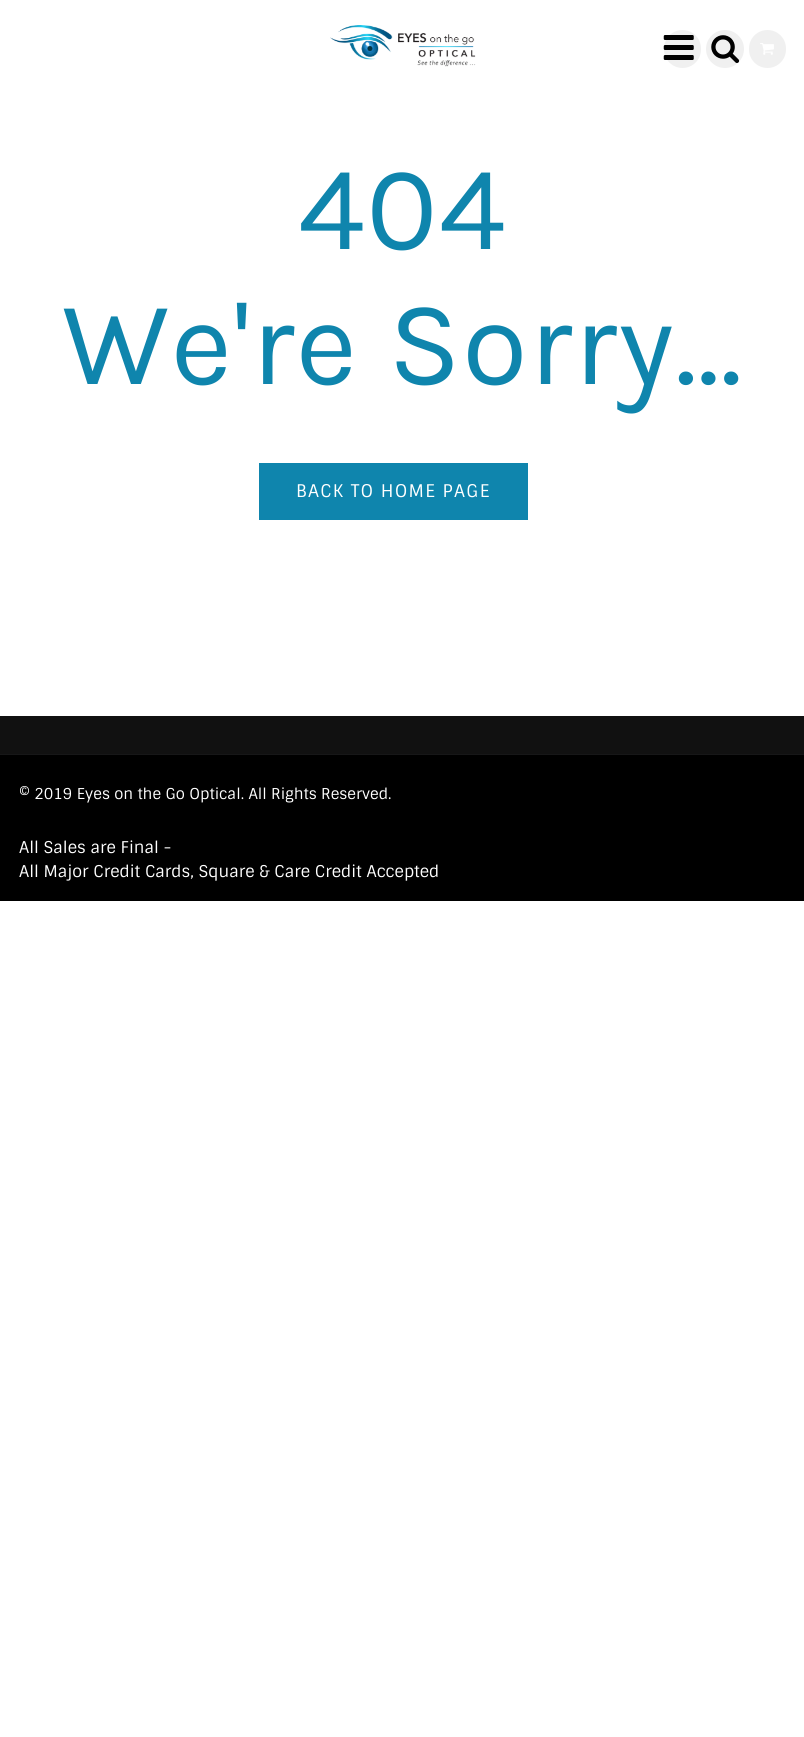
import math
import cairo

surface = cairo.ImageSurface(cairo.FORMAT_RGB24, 804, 1737)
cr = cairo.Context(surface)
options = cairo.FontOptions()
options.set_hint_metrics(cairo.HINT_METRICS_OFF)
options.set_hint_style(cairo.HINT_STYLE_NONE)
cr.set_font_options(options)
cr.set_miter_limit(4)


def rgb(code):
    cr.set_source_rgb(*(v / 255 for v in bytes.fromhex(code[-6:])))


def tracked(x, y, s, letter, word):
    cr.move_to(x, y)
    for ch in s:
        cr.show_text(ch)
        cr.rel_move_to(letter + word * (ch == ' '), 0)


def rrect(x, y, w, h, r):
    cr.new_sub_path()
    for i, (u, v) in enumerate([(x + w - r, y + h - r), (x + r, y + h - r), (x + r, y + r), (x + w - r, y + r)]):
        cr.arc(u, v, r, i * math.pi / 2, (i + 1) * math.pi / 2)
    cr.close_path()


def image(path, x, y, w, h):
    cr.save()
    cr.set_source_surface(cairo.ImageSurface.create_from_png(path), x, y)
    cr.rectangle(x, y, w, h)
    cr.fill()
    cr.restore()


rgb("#ffffff")
cr.paint()
image("img/1.png", 330, 25, 146, 42)
rgb("#f0f0f0")
rrect(664, 30, 37, 38, 18.5)
cr.fill()
image("img/2.png", 663, 35, 31, 25)
cr.arc(725, 49, 19, 0, 2 * math.pi)
cr.fill()
image("img/3.png", 711, 35, 29, 28)
rrect(749, 30, 37, 38, 18.5)
cr.fill()
image("img/4.png", 760, 43, 14, 12)
for x, y, w, h, color in [
    (259, 463, 269, 57, "#0f85ad"),
    (0, 716, 804, 38, "#111111"),
    (0, 755, 804, 146, "#000000"),
    (0, 754, 804, 1, "#171718"),
]:
    rgb(color)
    cr.rectangle(x, y, w, h)
    cr.fill()
cr.select_font_face("Karla")
cr.set_font_size(120)
rgb("#0f85ad")
tracked(298, 249, "404", 1.25, 0)
tracked(62, 384, "We're Sorry...", 1.25, 0)
cr.select_font_face("Sintony")
cr.set_font_size(17.5)
rgb("#ffffff")
tracked(296, 497, "BACK TO HOME PAGE", 1.25, 0)
cr.set_font_size(15)
cr.move_to(19, 799)
cr.show_text("© 2019 Eyes on the Go Optical. All Rights Reserved.")
cr.set_font_size(16.25)
cr.move_to(19, 853)
cr.show_text("All Sales are Final -")
cr.move_to(19, 877)
cr.show_text("All Major Credit Cards, Square & Care Credit Accepted")
surface.write_to_png("page.png")
